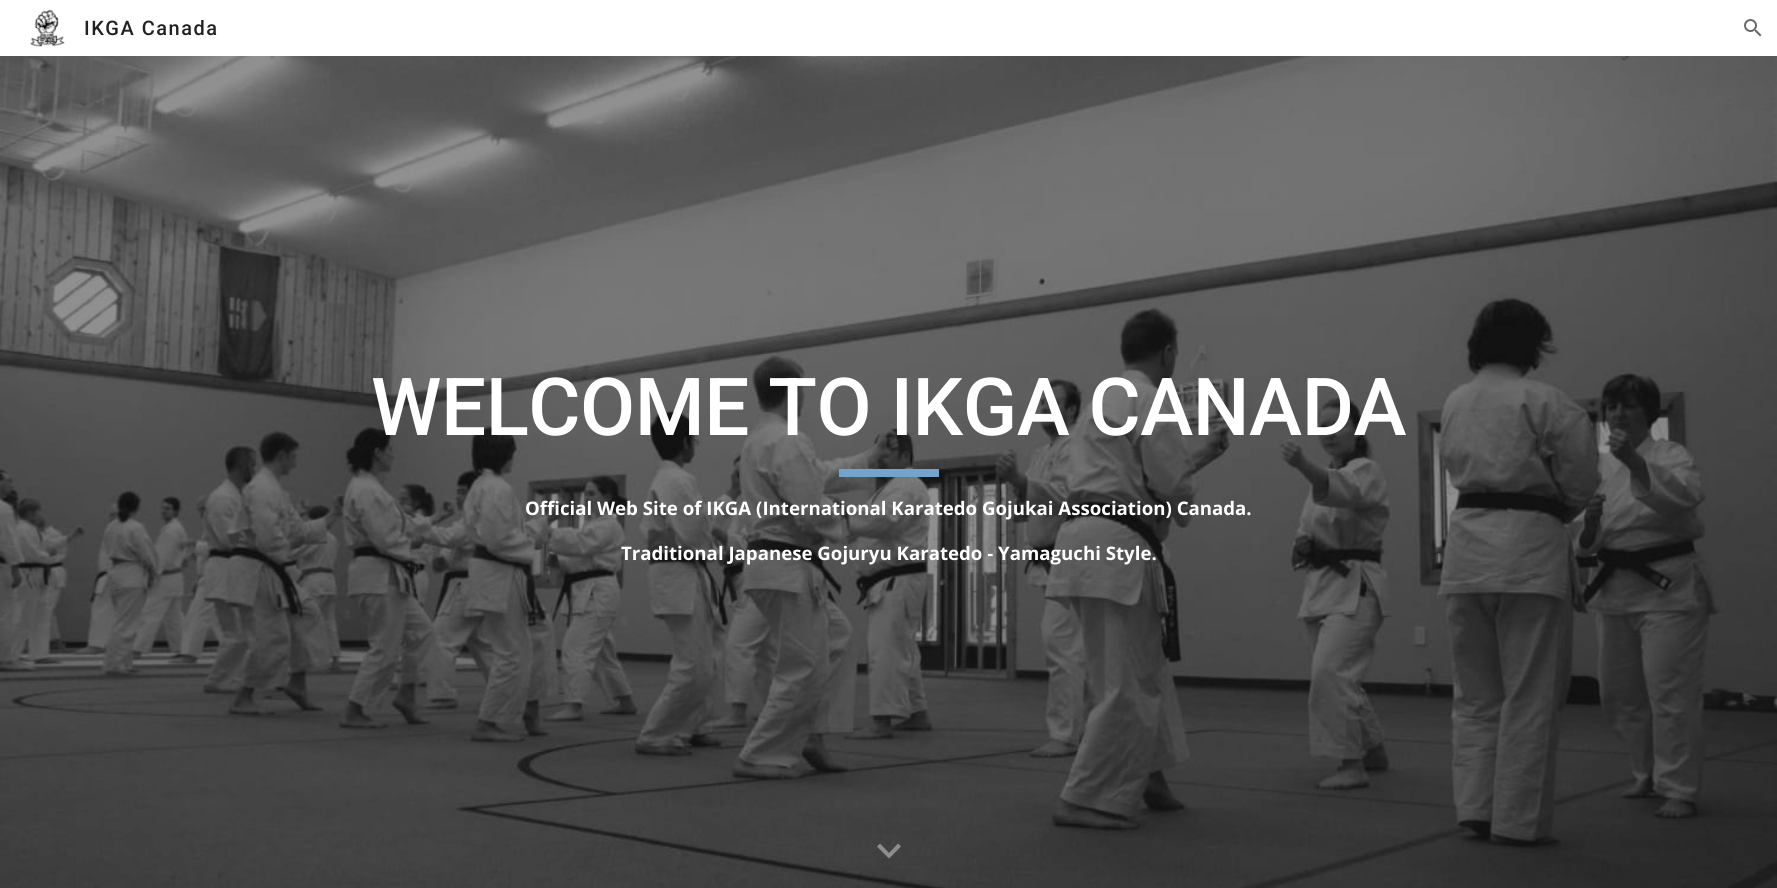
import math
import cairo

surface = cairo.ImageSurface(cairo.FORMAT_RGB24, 1777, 888)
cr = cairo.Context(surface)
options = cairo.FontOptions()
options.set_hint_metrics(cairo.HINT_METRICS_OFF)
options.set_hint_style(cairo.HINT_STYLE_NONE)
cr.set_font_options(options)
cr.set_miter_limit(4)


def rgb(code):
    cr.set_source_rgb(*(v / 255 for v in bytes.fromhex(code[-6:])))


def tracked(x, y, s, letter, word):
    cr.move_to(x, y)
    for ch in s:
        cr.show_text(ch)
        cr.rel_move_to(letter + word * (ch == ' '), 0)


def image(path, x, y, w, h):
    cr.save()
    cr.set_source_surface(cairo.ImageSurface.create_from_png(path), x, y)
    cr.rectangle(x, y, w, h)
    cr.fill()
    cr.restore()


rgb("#ffffff")
cr.paint()
image("img/1.png", 30, 9, 35, 38)
image("img/2.png", 1744, 19, 18, 18)
image("img/3.png", 0, 56, 1777, 832)
rgb("#74a4cb")
cr.rectangle(839, 469, 100, 8)
cr.fill()
cr.set_source_rgba(1, 1, 1, 0.4)
cr.new_path()
cr.move_to(880, 843.5)
cr.line_to(889, 853)
cr.line_to(898, 843.5)
cr.line_to(901, 846.5)
cr.line_to(889, 858.5)
cr.line_to(877, 846.5)
cr.close_path()
cr.fill()
cr.select_font_face("Roboto Medium")
cr.set_font_size(20)
rgb("#212121")
tracked(84, 35, "IKGA Canada", 1.5, 0)
cr.set_font_size(80)
rgb("#ffffff")
tracked(371, 435, "WELCOME TO IKGA CANADA", -0.5, 0)
cr.select_font_face("Open Sans", cairo.FONT_SLANT_NORMAL, cairo.FONT_WEIGHT_BOLD)
cr.set_font_size(18.65)
cr.move_to(525, 515)
cr.show_text("Official Web Site of IKGA (International Karatedo Gojukai Association) Canada.")
cr.move_to(621, 560)
cr.show_text("Traditional Japanese Gojuryu Karatedo - Yamaguchi Style.")
surface.write_to_png("page.png")
